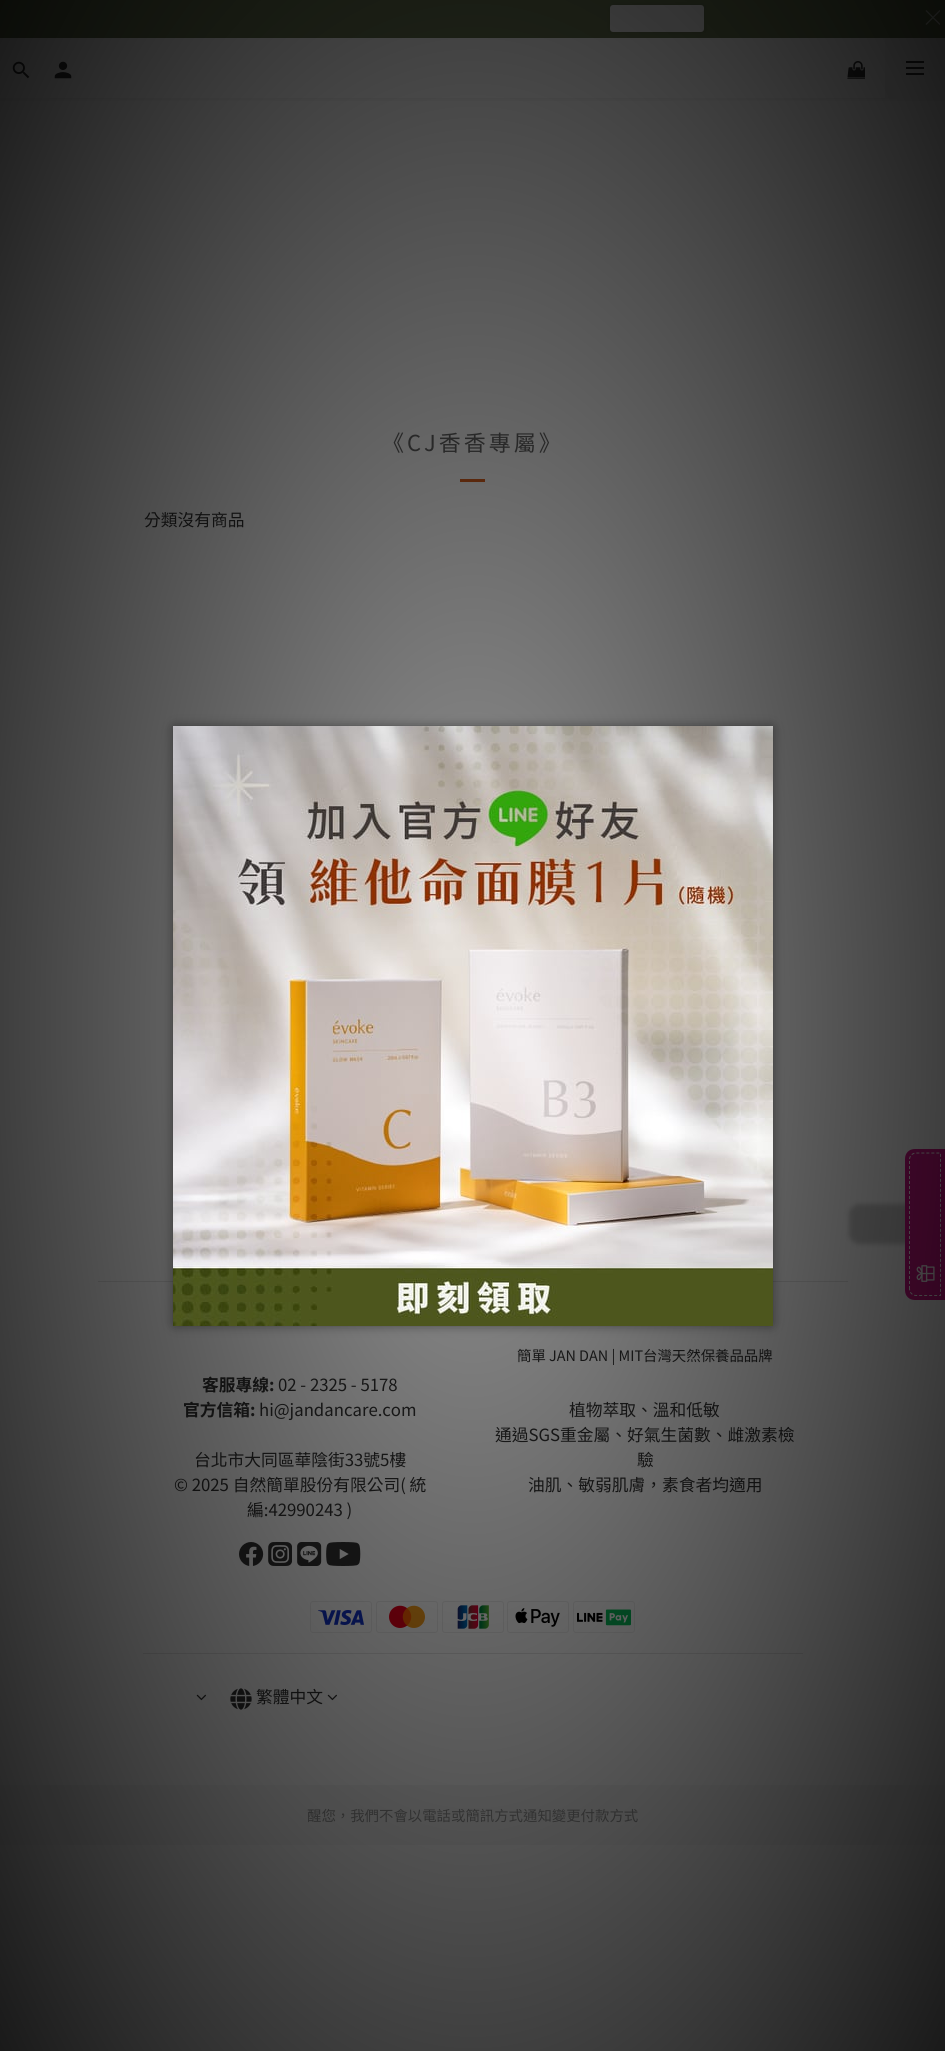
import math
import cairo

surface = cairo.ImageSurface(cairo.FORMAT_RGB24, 945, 2051)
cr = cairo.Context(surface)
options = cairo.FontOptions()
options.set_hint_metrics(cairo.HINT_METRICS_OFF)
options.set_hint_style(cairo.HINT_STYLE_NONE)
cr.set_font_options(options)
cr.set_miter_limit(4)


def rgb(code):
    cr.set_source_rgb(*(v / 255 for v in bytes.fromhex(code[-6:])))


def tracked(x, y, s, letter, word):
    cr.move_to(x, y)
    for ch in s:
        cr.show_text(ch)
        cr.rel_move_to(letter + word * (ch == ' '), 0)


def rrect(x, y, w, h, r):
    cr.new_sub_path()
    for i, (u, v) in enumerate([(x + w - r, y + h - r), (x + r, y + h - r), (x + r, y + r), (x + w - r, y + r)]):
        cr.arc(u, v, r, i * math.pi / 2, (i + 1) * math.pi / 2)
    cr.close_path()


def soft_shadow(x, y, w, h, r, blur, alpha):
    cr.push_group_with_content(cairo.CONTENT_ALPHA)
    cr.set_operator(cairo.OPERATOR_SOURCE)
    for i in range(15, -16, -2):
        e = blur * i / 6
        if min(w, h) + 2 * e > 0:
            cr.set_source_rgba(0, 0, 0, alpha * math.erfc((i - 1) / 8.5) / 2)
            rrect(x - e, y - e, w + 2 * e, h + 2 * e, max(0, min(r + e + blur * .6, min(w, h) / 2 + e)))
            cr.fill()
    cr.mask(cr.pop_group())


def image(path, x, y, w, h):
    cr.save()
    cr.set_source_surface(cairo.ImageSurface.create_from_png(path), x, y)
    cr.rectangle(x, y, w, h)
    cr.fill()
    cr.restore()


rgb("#ffffff")
cr.paint()
cr.save()
cr.rectangle(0, 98, 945, 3)
cr.clip()
rgb("#000000")
soft_shadow(0, 40, 945, 60, 0, 3, 0.06)
cr.restore()
rgb("#697752")
cr.rectangle(0, 0, 945, 38)
cr.fill()
rgb("#000000")
soft_shadow(610, 5, 94, 27, 3, 2.5, 0.1)
rgb("#ebebeb")
rrect(610, 5, 94, 27, 3)
cr.fill()
image("img/1.png", 925, 10, 15, 15)
rgb("#000000")
soft_shadow(849, 1204, 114, 40, 10, 2.5, 0.2)
rgb("#d7168d")
cr.new_path()
cr.move_to(905, 1290)
cr.line_to(905, 1159)
cr.curve_to(905, 1153, 909, 1149, 915, 1149)
cr.line_to(945, 1149)
cr.line_to(945, 1300)
cr.line_to(915, 1300)
cr.curve_to(909, 1300, 905, 1296, 905, 1290)
cr.close_path()
cr.fill()
cr.new_path()
cr.move_to(909.5, 1289)
cr.line_to(909.5, 1159.5)
cr.curve_to(909.5, 1156, 912.5, 1153, 916, 1153)
cr.line_to(940.5, 1153)
cr.line_to(940.5, 1295.5)
cr.line_to(916, 1295.5)
cr.curve_to(912.5, 1295.5, 909.5, 1292.5, 909.5, 1289)
cr.close_path()
rgb("#ffffff")
cr.set_line_width(1)
cr.set_dash([3, 2])
cr.stroke()
image("img/3.png", 916, 1265, 19, 17)
image("img/4.png", 12, 61, 18, 18)
image("img/5.png", 54, 61, 18, 18)
image("img/6.png", 847, 61, 18, 18)
for x, y, w, h, color in [
    (885, 38, 60, 60, "#f5f5f5"),
    (906, 67, 18, 2, "#333333"),
    (906, 61, 18, 2, "#333333"),
    (906, 73, 18, 2, "#333333"),
    (460, 479, 25, 3, "#db601f"),
    (98, 1281, 750, 1, "#e6e6e6"),
]:
    rgb(color)
    cr.rectangle(x, y, w, h)
    cr.fill()
image("img/7.png", 239, 1542, 25, 24)
image("img/8.png", 268, 1542, 24, 24)
image("img/9.png", 297, 1542, 25, 24)
image("img/10.png", 326, 1542, 35, 24)
image("img/11.png", 310, 1601, 62, 32)
image("img/12.png", 376, 1601, 62, 32)
image("img/13.png", 442, 1601, 62, 32)
image("img/14.png", 507, 1601, 62, 32)
image("img/15.png", 573, 1601, 62, 32)
cr.rectangle(143, 1653, 660, 1)
cr.fill()
image("img/16.png", 196, 1694, 10, 7)
image("img/17.png", 230, 1688, 22, 22)
image("img/16.png", 327, 1694, 10, 7)
rgb("#f7f7f7")
cr.rectangle(0, 1785, 945, 60)
cr.fill()
cr.select_font_face("Noto Sans TC")
cr.set_font_size(22)
rgb("#666666")
tracked(382, 451, "《CJ香香專屬》", 3, 0)
cr.set_font_size(16.75)
rgb("#333333")
cr.move_to(144, 526)
cr.show_text("分類沒有商品")
cr.select_font_face("Noto Sans TC", cairo.FONT_SLANT_NORMAL, cairo.FONT_WEIGHT_BOLD)
cr.move_to(202, 1391)
cr.show_text("客服專線:")
cr.select_font_face("Noto Sans TC")
cr.move_to(278, 1391)
cr.show_text("02 - 2325 - 5178")
cr.select_font_face("Noto Sans TC", cairo.FONT_SLANT_NORMAL, cairo.FONT_WEIGHT_BOLD)
cr.move_to(183, 1416)
cr.show_text("官方信箱:")
cr.select_font_face("Noto Sans TC")
for x, y, s in [
    (259, 1416, "hi@jandancare.com"),
    (194, 1466, "台北市大同區華陰街33號5樓"),
    (174, 1491, "© 2025 自然簡單股份有限公司( 統"),
    (247, 1516, "編:42990243 )"),
]:
    cr.move_to(x, y)
    cr.show_text(s)
cr.set_font_size(14.4)
cr.move_to(517, 1361)
cr.show_text("簡單 JAN DAN | MIT台灣天然保養品品牌")
cr.set_font_size(16.75)
for x, y, s in [
    (569, 1416, "植物萃取、溫和低敏"),
    (495, 1441, "通過SGS重金屬、好氣生菌數、雌激素檢"),
    (637, 1466, "驗"),
    (528, 1491, "油肌、敏弱肌膚，素食者均適用"),
    (256, 1703, "繁體中文"),
]:
    cr.move_to(x, y)
    cr.show_text(s)
cr.set_font_size(14.4)
rgb("#999999")
cr.move_to(307, 1821)
cr.show_text("醒您，我們不會以電話或簡訊方式通知變更付款方式")
gradient = cairo.RadialGradient(0, 0, 0, 0, 0, 1)
gradient.set_matrix(cairo.Matrix(1 / 668, 0, 0, 1 / 1450, -1 * 473 / 668, -1 * 1026 / 1450))
gradient.add_color_stop_rgba(0, 0, 0, 0, 0.4)
gradient.add_color_stop_rgba(1, 0, 0, 0, 0.9)
cr.set_source(gradient)
cr.rectangle(0, 0, 945, 2051)
cr.fill()
rgb("#000000")
soft_shadow(173, 726, 600, 600, 2, 5.5, 0.4)
image("img/2.png", 173, 726, 600, 600)
surface.write_to_png("page.png")
